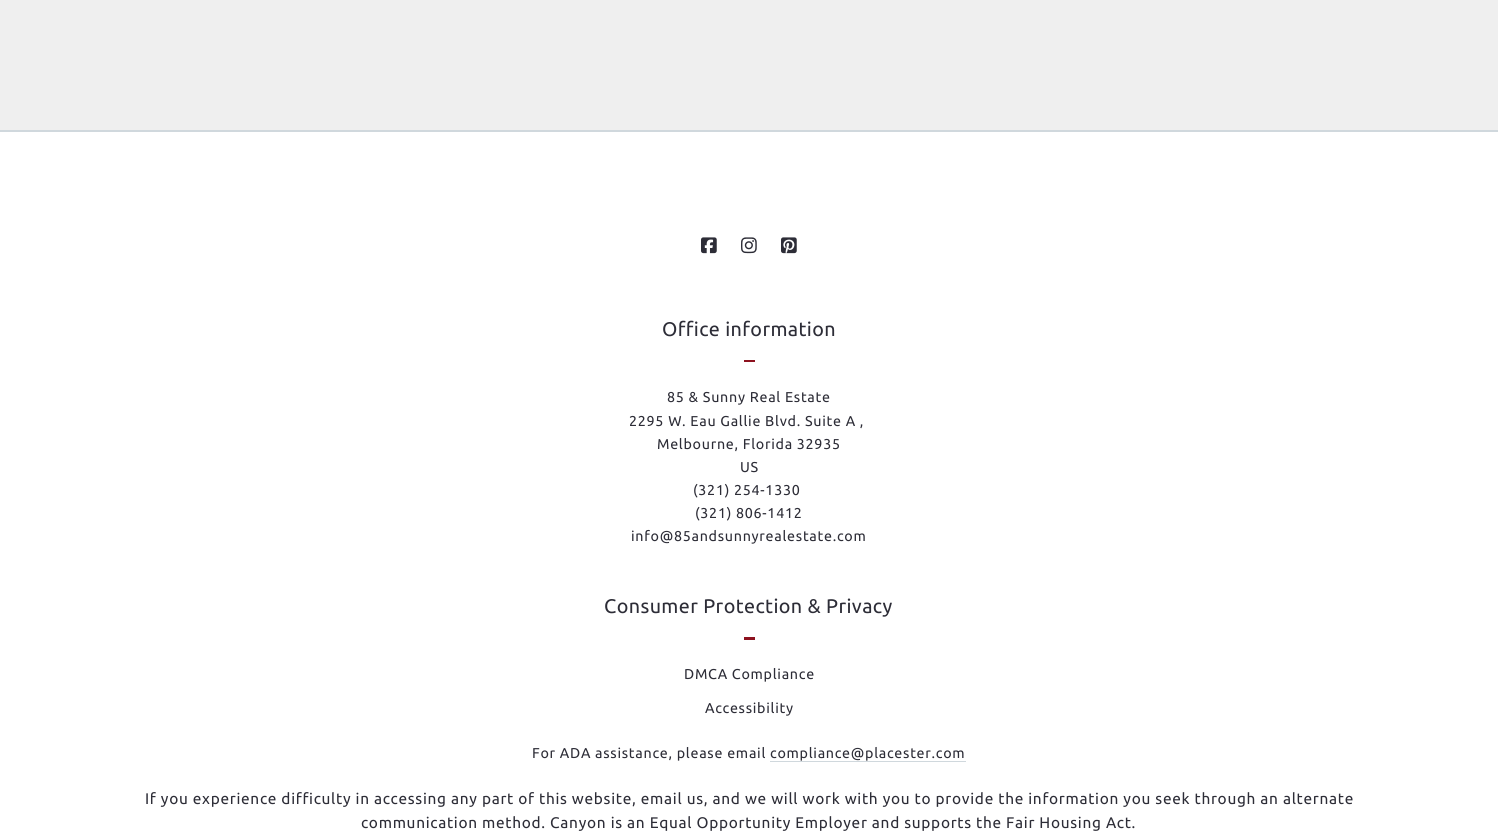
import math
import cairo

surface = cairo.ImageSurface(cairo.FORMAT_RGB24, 1498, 840)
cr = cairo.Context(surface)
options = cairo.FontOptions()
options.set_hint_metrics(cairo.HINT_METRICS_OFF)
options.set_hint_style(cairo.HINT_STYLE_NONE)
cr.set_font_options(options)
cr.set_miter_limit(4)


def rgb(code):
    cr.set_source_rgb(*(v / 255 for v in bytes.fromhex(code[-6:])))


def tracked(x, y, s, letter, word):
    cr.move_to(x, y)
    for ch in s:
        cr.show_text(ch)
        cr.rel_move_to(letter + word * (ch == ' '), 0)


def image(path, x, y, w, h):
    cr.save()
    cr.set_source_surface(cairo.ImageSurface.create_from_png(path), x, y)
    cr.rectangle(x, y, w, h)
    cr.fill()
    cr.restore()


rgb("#ffffff")
cr.paint()
rgb("#efefef")
cr.rectangle(0, 0, 1498, 130)
cr.fill()
rgb("#d0d8dd")
cr.rectangle(0, 130, 1498, 2)
cr.fill()
image("img/1.png", 701, 237, 16, 17)
image("img/2.png", 741, 237, 16, 17)
image("img/3.png", 781, 237, 16, 17)
for x, y, w, h, color in [
    (744, 360, 11, 2, "#8d121f"),
    (744, 637, 11, 3, "#8d121f"),
    (770, 761, 196, 1, "#d0d8dd"),
]:
    rgb(color)
    cr.rectangle(x, y, w, h)
    cr.fill()
cr.select_font_face("Ubuntu")
cr.set_font_size(19.75)
rgb("#2d2d37")
tracked(662, 336, "Office information", 0.4, 0)
cr.set_font_size(14.3)
for x, y, s in [
    (667, 402, "85 & Sunny Real Estate"),
    (629, 426, "2295 W. Eau Gallie Blvd. Suite A ,"),
    (657, 449, "Melbourne, Florida 32935"),
    (740, 472, "US"),
    (693, 495, "(321) 254-1330"),
    (695, 518, "(321) 806-1412"),
    (631, 541, "info@85andsunnyrealestate.com"),
]:
    tracked(x, y, s, 0.71, 0)
cr.set_font_size(19.75)
tracked(604, 613, "Consumer Protection & Privacy", 0.4, 0)
cr.set_font_size(14.3)
for x, y, s in [
    (684, 679, "DMCA Compliance"),
    (705, 713, "Accessibility"),
    (532, 758, "For ADA assistance, please email compliance@placester.com"),
]:
    tracked(x, y, s, 0.71, 0)
cr.set_font_size(15.4)
tracked(145, 804, "If you experience difficulty in accessing any part of this website, email us, and we will work with you to provide the information you seek through an alternate", 0.71, 0)
tracked(361, 828, "communication method. Canyon is an Equal Opportunity Employer and supports the Fair Housing Act.", 0.71, 0)
surface.write_to_png("page.png")
